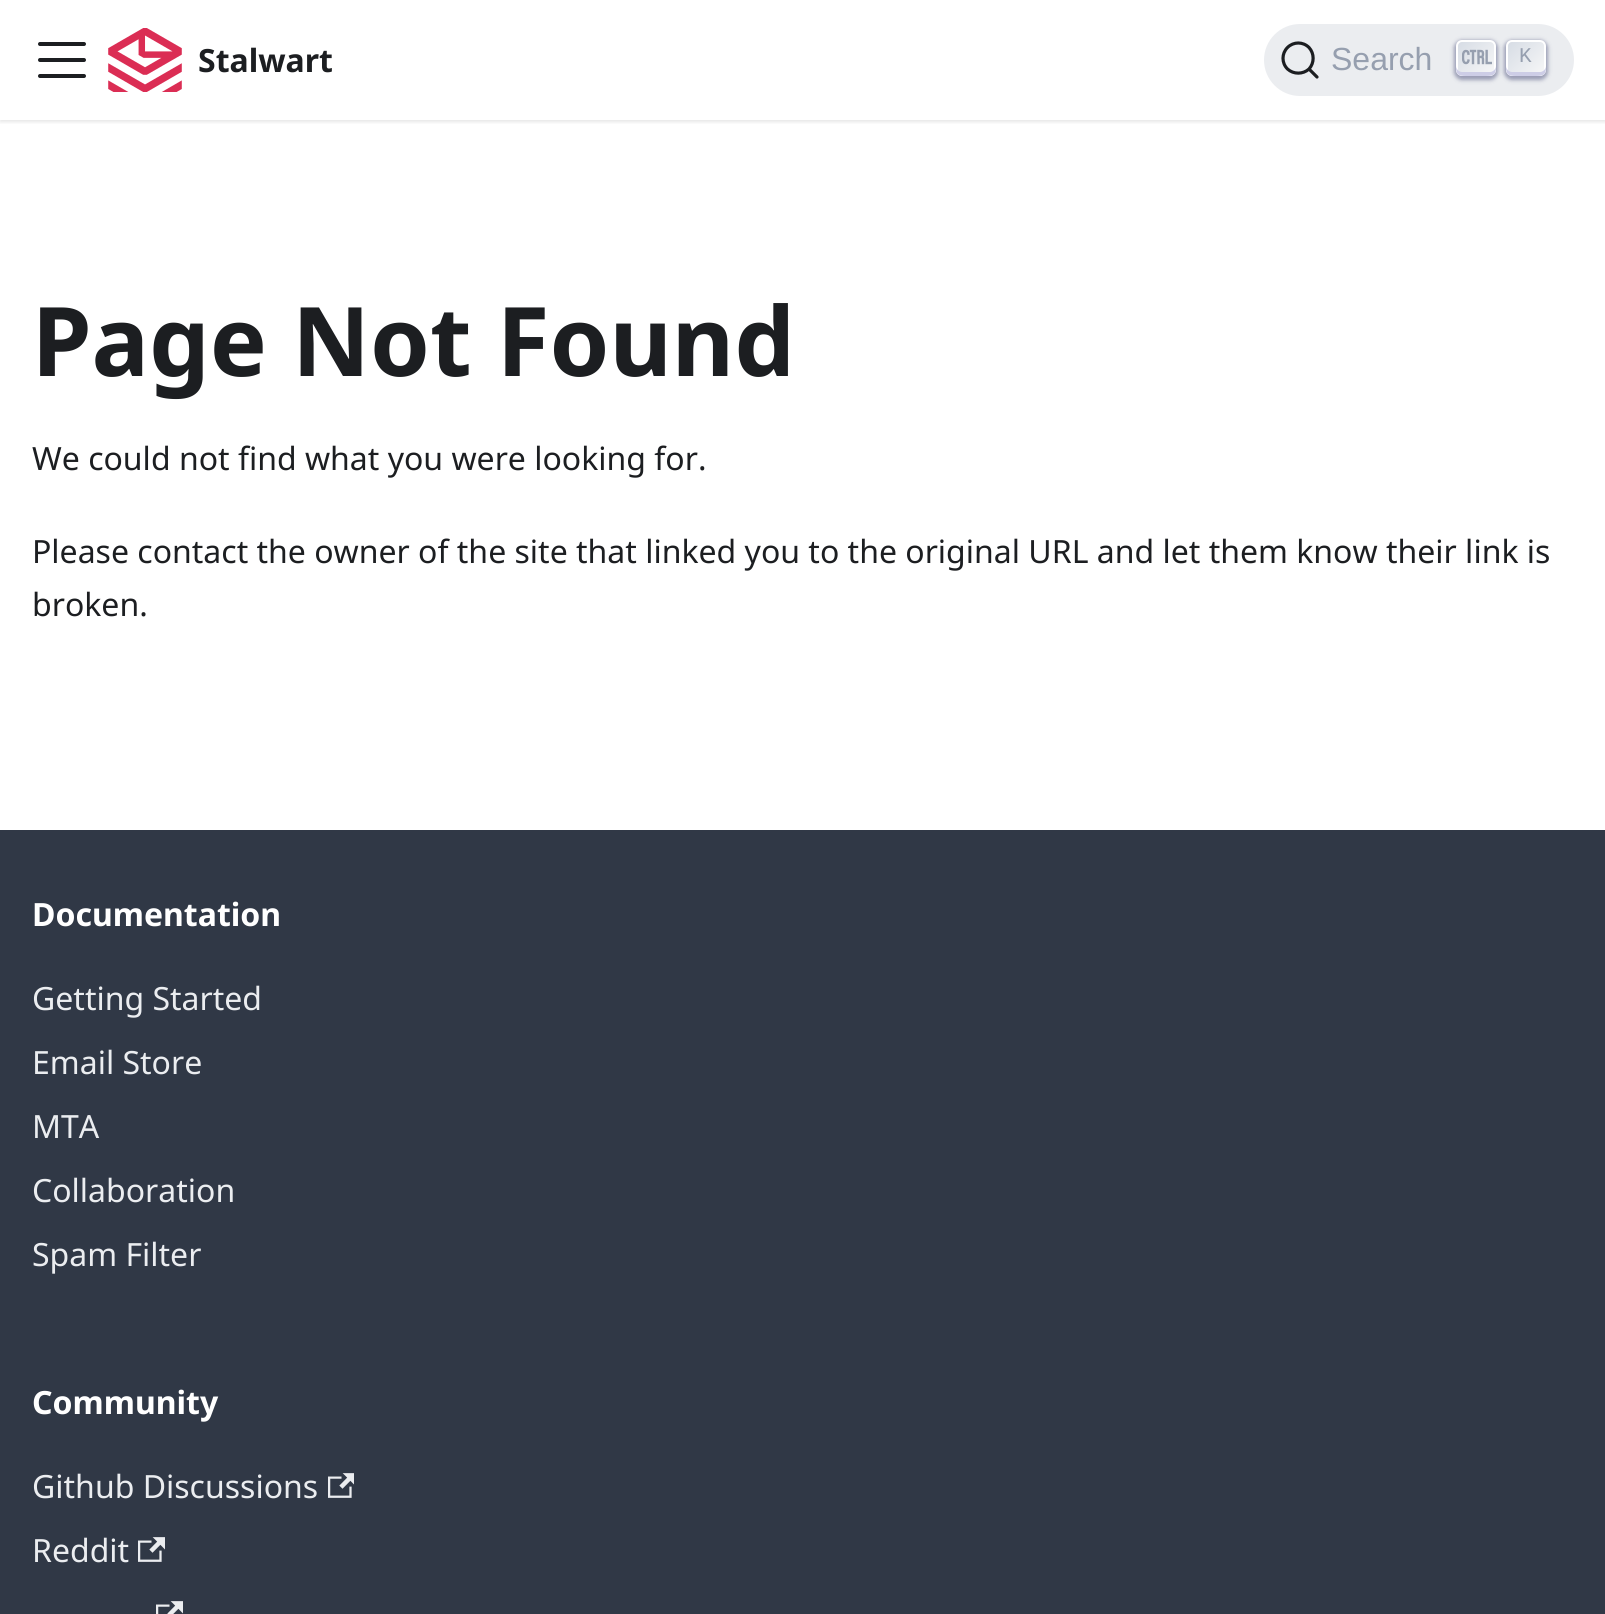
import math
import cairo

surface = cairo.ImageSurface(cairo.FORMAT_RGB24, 1605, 1614)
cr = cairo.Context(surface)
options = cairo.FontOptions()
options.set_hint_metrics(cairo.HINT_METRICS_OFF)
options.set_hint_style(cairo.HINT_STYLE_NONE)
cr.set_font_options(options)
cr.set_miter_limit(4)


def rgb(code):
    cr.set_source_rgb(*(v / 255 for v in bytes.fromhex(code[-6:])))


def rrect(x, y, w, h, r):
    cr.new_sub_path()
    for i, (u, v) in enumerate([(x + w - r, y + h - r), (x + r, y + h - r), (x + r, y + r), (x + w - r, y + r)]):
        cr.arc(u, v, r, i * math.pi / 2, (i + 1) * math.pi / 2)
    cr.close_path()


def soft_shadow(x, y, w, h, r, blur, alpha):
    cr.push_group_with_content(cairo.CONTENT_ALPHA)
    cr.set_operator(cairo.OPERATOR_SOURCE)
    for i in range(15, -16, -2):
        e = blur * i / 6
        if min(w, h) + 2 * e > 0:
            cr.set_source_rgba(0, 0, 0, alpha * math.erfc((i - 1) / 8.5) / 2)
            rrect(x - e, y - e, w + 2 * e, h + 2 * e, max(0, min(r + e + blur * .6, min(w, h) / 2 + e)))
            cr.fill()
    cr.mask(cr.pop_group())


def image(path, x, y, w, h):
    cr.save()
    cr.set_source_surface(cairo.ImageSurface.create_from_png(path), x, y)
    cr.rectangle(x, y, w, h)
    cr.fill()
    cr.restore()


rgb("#ffffff")
cr.paint()
cr.save()
cr.rectangle(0, 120, 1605, 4)
cr.clip()
rgb("#000000")
soft_shadow(0, 2, 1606, 120, 0, 2, 0.1)
cr.restore()
cr.new_path()
cr.move_to(40, 44)
cr.line_to(84, 44)
cr.move_to(40, 60)
cr.line_to(84, 60)
cr.move_to(40, 76)
cr.line_to(84, 76)
rgb("#1c1e21")
cr.set_line_width(4)
cr.set_line_cap(cairo.LINE_CAP_ROUND)
cr.stroke()
image("img/1.png", 108, 28, 74, 64)
rgb("#ebedf0")
rrect(1264, 24, 310, 72, 36)
cr.fill()
cr.new_path()
cr.move_to(1309, 69)
cr.line_to(1317, 77)
cr.line_to(1309, 69)
cr.curve_to(1303, 74.5, 1293.5, 74.5, 1287.5, 69)
cr.curve_to(1281.5, 63, 1281.5, 53.5, 1287.5, 47.5)
cr.curve_to(1293.5, 41.5, 1303, 41.5, 1309, 47.5)
cr.curve_to(1314.5, 53.5, 1314.5, 63, 1309, 69)
cr.close_path()
rgb("#1c1e21")
cr.set_line_width(3.2)
cr.set_line_join(cairo.LINE_JOIN_ROUND)
cr.stroke()
rgb("#1e235a")
soft_shadow(1454, 40, 44, 40, 8, 2, 0.4)
gradient = cairo.LinearGradient(1457, 39, 1495, 77)
gradient.add_color_stop_rgba(0, 0.835, 0.859, 0.894, 1)
gradient.add_color_stop_rgba(1, 0.973, 0.973, 0.973, 1)
cr.set_source(gradient)
rrect(1457, 41, 38, 34, 5)
cr.fill_preserve()
rgb("#ffffff")
cr.set_line_width(2)
cr.set_line_cap(cairo.LINE_CAP_BUTT)
cr.set_line_join(cairo.LINE_JOIN_MITER)
cr.stroke()
rgb("#cdcde6")
cr.new_path()
cr.move_to(1456, 66)
cr.curve_to(1456, 75, 1458, 76, 1467, 76)
cr.line_to(1485, 76)
cr.curve_to(1494, 76, 1496, 75, 1496, 66)
cr.curve_to(1496, 69, 1493, 72, 1490, 72)
cr.line_to(1462, 72)
cr.curve_to(1459, 72, 1456, 69, 1456, 66)
cr.close_path()
cr.fill()
image("img/2.png", 1462, 49, 30, 16)
rgb("#1e235a")
soft_shadow(1504, 40, 44, 40, 8, 2, 0.4)
gradient = cairo.LinearGradient(1507, 39, 1545, 77)
gradient.add_color_stop_rgba(0, 0.835, 0.859, 0.894, 1)
gradient.add_color_stop_rgba(1, 0.973, 0.973, 0.973, 1)
cr.set_source(gradient)
rrect(1507, 41, 38, 34, 5)
cr.fill_preserve()
rgb("#ffffff")
cr.stroke()
rgb("#cdcde6")
cr.new_path()
cr.move_to(1506, 66)
cr.curve_to(1506, 75, 1508, 76, 1517, 76)
cr.line_to(1535, 76)
cr.curve_to(1544, 76, 1546, 75, 1546, 66)
cr.curve_to(1546, 69, 1543, 72, 1540, 72)
cr.line_to(1512, 72)
cr.curve_to(1509, 72, 1506, 69, 1506, 66)
cr.close_path()
cr.fill()
rgb("#303846")
cr.rectangle(0, 830, 1605, 784)
cr.fill()
image("img/3.png", 328, 1473, 26, 25)
image("img/4.png", 138, 1537, 27, 25)
image("img/5.png", 156, 1601, 27, 13)
cr.select_font_face("Noto Sans", cairo.FONT_SLANT_NORMAL, cairo.FONT_WEIGHT_BOLD)
cr.set_font_size(32)
rgb("#1c1e21")
cr.move_to(198, 72)
cr.show_text("Stalwart")
cr.select_font_face("Liberation Sans")
rgb("#969faf")
cr.move_to(1331, 70)
cr.show_text("Search")
cr.select_font_face("Liberation Mono")
cr.set_font_size(21)
cr.move_to(1519, 62)
cr.show_text("K")
cr.select_font_face("Noto Sans", cairo.FONT_SLANT_NORMAL, cairo.FONT_WEIGHT_BOLD)
cr.set_font_size(96)
rgb("#1c1e21")
cr.move_to(32, 376)
cr.show_text("Page Not Found")
cr.select_font_face("Noto Sans")
cr.set_font_size(32)
for x, y, s in [
    (32, 470, "We could not find what you were looking for."),
    (32, 563, "Please contact the owner of the site that linked you to the original URL and let them know their link is"),
    (32, 616, "broken."),
]:
    cr.move_to(x, y)
    cr.show_text(s)
cr.select_font_face("Noto Sans", cairo.FONT_SLANT_NORMAL, cairo.FONT_WEIGHT_BOLD)
rgb("#ffffff")
cr.move_to(32, 926)
cr.show_text("Documentation")
cr.select_font_face("Noto Sans")
rgb("#ebedf0")
for x, y, s in [
    (32, 1010, "Getting Started"),
    (32, 1074, "Email Store"),
    (32, 1138, "MTA"),
    (32, 1202, "Collaboration"),
    (32, 1266, "Spam Filter"),
]:
    cr.move_to(x, y)
    cr.show_text(s)
cr.select_font_face("Noto Sans", cairo.FONT_SLANT_NORMAL, cairo.FONT_WEIGHT_BOLD)
rgb("#ffffff")
cr.move_to(32, 1414)
cr.show_text("Community")
cr.select_font_face("Noto Sans")
rgb("#ebedf0")
cr.move_to(32, 1498)
cr.show_text("Github Discussions")
cr.move_to(32, 1562)
cr.show_text("Reddit")
surface.write_to_png("page.png")
